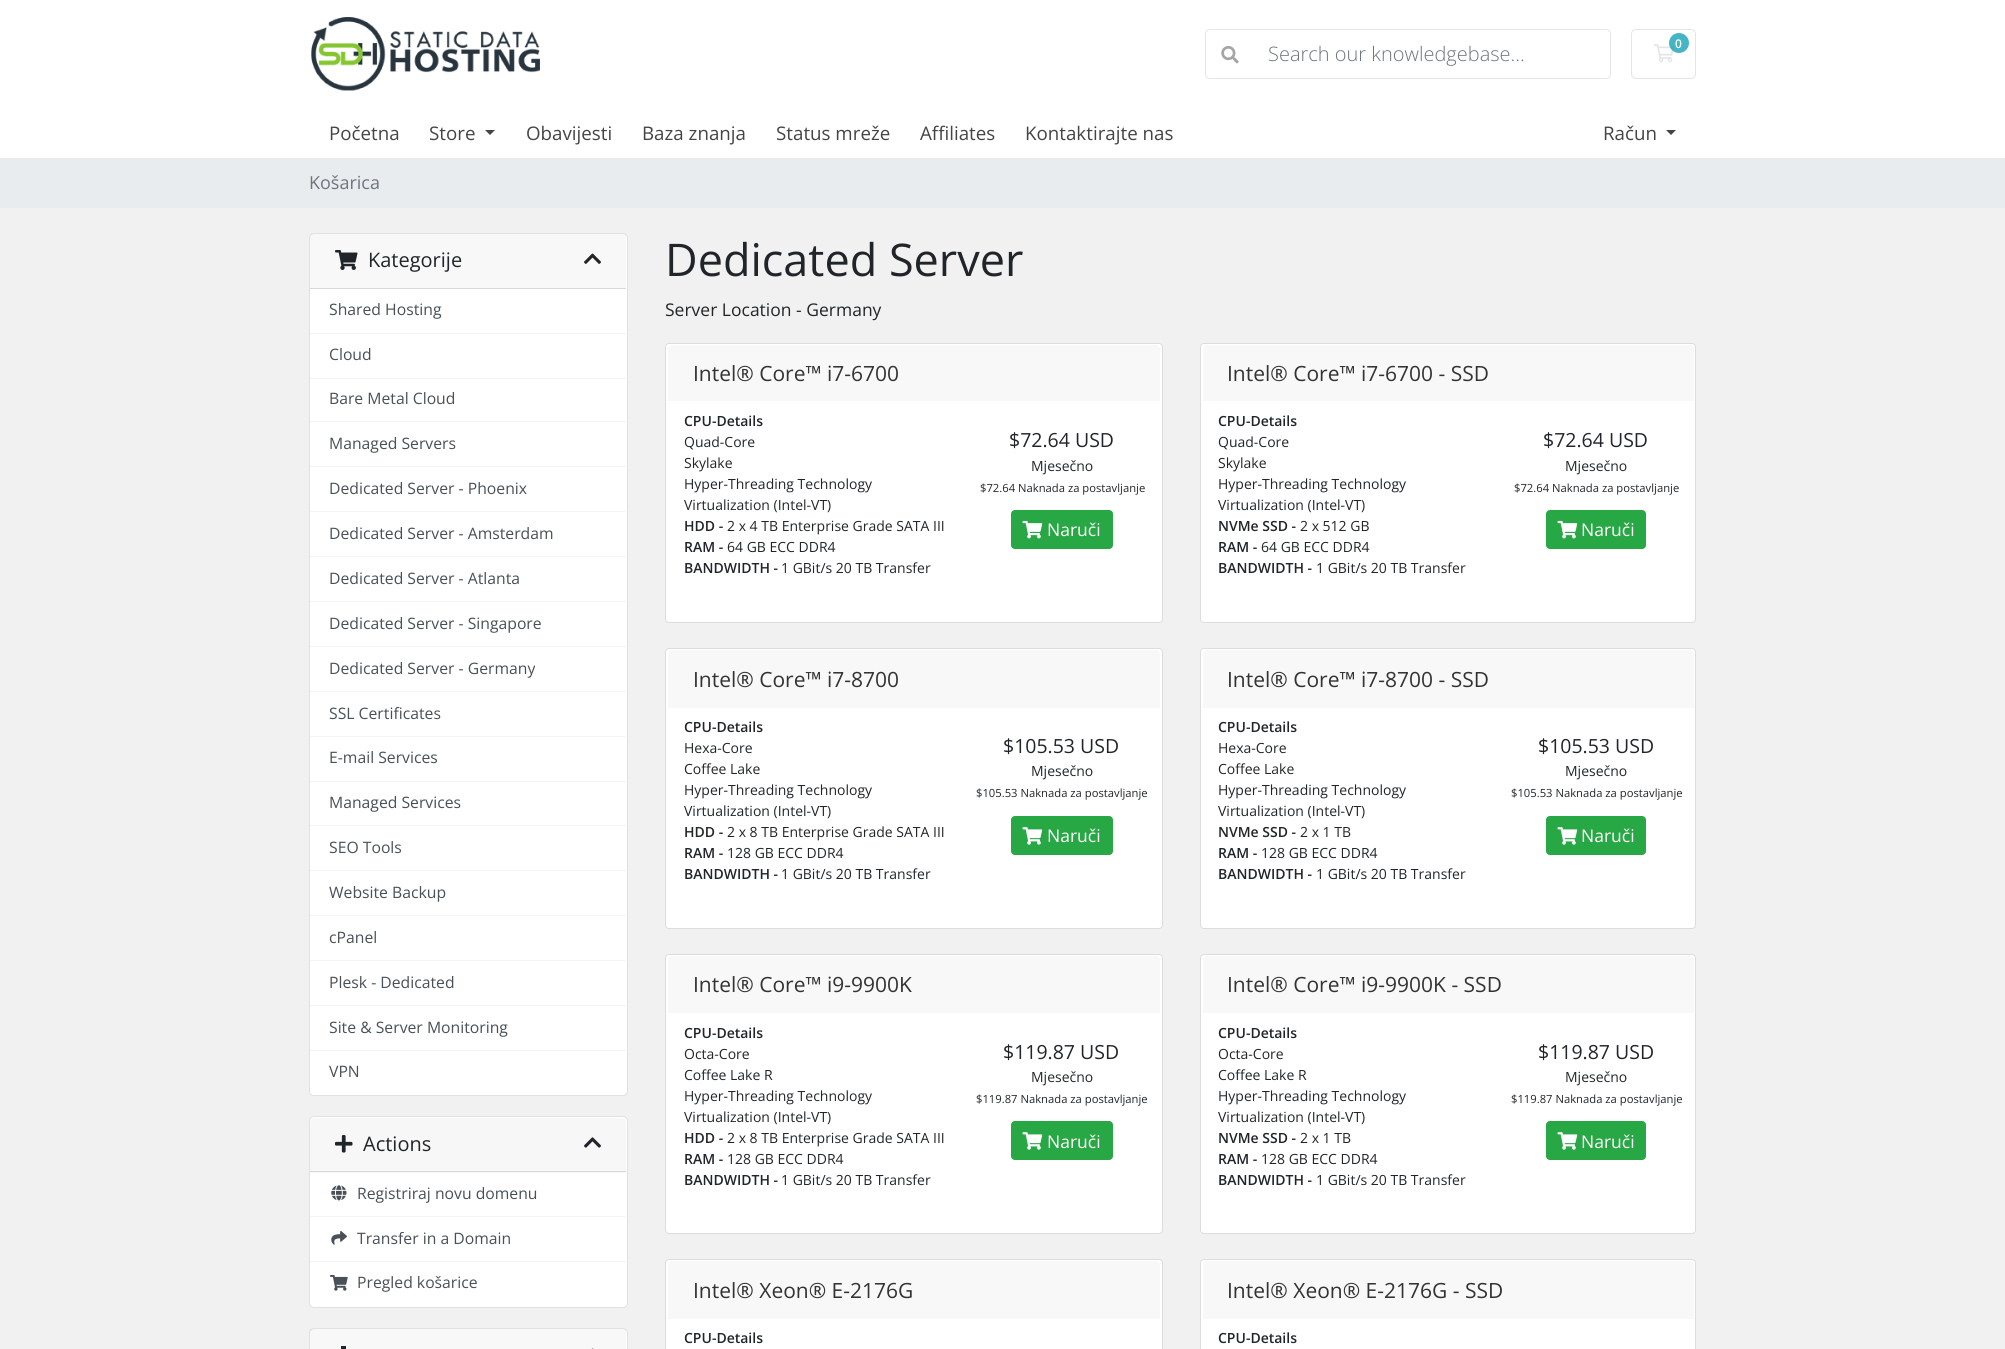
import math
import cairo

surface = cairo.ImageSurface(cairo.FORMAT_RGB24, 2005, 1349)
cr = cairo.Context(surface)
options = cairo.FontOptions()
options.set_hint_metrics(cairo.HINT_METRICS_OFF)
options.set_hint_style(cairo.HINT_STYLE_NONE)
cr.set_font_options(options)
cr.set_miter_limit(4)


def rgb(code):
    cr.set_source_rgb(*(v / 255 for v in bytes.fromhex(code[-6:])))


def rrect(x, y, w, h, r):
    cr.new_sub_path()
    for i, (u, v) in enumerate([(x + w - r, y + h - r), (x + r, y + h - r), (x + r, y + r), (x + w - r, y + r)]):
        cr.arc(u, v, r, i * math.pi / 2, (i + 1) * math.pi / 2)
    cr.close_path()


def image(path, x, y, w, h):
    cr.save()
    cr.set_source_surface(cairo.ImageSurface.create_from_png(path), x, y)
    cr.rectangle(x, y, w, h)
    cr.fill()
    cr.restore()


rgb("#f1f1f1")
cr.paint()
rgb("#ffffff")
cr.rectangle(0, 0, 2005, 158)
cr.fill()
image("img/1.png", 311, 17, 229, 74)
rrect(1631.5, 29.5, 64, 49, 4.5)
rgb("#e5e5e5")
cr.set_line_width(1)
cr.stroke()
image("img/2.png", 1653, 44, 21, 19)
cr.set_source_rgba(0.09, 0.635, 0.722, 0.8)
cr.arc(1679, 43, 10, 0, 2 * math.pi)
cr.fill()
rrect(1205.5, 29.5, 405, 49, 4.5)
rgb("#e5e5e5")
cr.stroke()
rgb("#ffffff")
cr.new_path()
cr.move_to(1253, 30)
cr.line_to(1605, 30)
cr.curve_to(1608, 30, 1610, 32, 1610, 35)
cr.line_to(1610, 73)
cr.curve_to(1610, 76, 1608, 78, 1605, 78)
cr.line_to(1253, 78)
cr.close_path()
cr.fill()
cr.new_path()
cr.move_to(1211, 30)
cr.line_to(1254, 30)
cr.line_to(1254, 78)
cr.line_to(1211, 78)
cr.curve_to(1208, 78, 1206, 76, 1206, 73)
cr.line_to(1206, 35)
cr.curve_to(1206, 32, 1208, 30, 1211, 30)
cr.close_path()
cr.fill()
image("img/3.png", 1221, 46, 18, 18)
rgb("#444444")
cr.new_path()
cr.move_to(485, 130)
cr.line_to(495, 130)
cr.line_to(490, 135)
cr.close_path()
cr.fill()
cr.new_path()
cr.move_to(1666, 130)
cr.line_to(1676, 130)
cr.line_to(1671, 135)
cr.close_path()
cr.fill()
rgb("#e9ecef")
cr.rectangle(0, 158, 2005, 50)
cr.fill()
rgb("#ffffff")
rrect(309, 233, 319, 863, 5)
cr.fill()
rrect(309.5, 233.5, 318, 862, 4.5)
cr.set_source_rgba(0, 0, 0, 0.12)
cr.stroke()
cr.set_source_rgba(0, 0, 0, 0.03)
cr.rectangle(310, 234, 316, 54)
cr.fill()
rgb("#d8d8d8")
cr.rectangle(310, 288, 316, 1)
cr.fill()
image("img/4.png", 335, 250, 23, 20)
image("img/5.png", 584, 253, 17, 11)
for x, y, w, h, color in [
    (310, 333, 316, 1, "#f5f5f5"),
    (310, 378, 316, 1, "#f5f5f5"),
    (310, 421, 316, 1, "#f5f5f5"),
    (310, 466, 316, 1, "#f5f5f5"),
    (310, 511, 316, 1, "#f5f5f5"),
    (310, 556, 316, 1, "#f5f5f5"),
    (310, 601, 316, 1, "#f5f5f5"),
    (310, 646, 316, 1, "#f5f5f5"),
    (310, 691, 316, 1, "#f5f5f5"),
    (310, 736, 316, 1, "#f5f5f5"),
    (310, 781, 316, 1, "#f5f5f5"),
    (310, 825, 316, 1, "#f5f5f5"),
    (310, 870, 316, 1, "#f5f5f5"),
    (310, 915, 316, 1, "#f5f5f5"),
    (310, 960, 316, 1, "#f5f5f5"),
    (310, 1005, 316, 1, "#f5f5f5"),
    (310, 1050, 316, 1, "#f5f5f5"),
]:
    rgb(color)
    cr.rectangle(x, y, w, h)
    cr.fill()
rgb("#ffffff")
cr.new_path()
cr.move_to(310, 1051)
cr.line_to(626, 1051)
cr.line_to(626, 1091)
cr.curve_to(626, 1093, 624, 1095, 622, 1095)
cr.line_to(314, 1095)
cr.curve_to(312, 1095, 310, 1093, 310, 1091)
cr.close_path()
cr.fill()
rrect(309, 1116, 319, 192, 5)
cr.fill()
rrect(309.5, 1116.5, 318, 191, 4.5)
cr.set_source_rgba(0, 0, 0, 0.12)
cr.stroke()
rgb("#f7f7f7")
cr.new_path()
cr.move_to(314, 1118)
cr.line_to(622, 1118)
cr.curve_to(624, 1118, 626, 1120, 626, 1122)
cr.line_to(626, 1173)
cr.line_to(310, 1173)
cr.line_to(310, 1122)
cr.curve_to(310, 1120, 312, 1118, 314, 1118)
cr.close_path()
cr.fill()
rgb("#d8d8d8")
cr.rectangle(310, 1171, 316, 1)
cr.fill()
image("img/6.png", 335, 1135, 18, 18)
image("img/7.png", 584, 1137, 17, 11)
rgb("#f5f5f5")
cr.rectangle(310, 1216, 316, 1)
cr.fill()
image("img/8.png", 331, 1185, 16, 16)
cr.rectangle(310, 1261, 316, 1)
cr.fill()
image("img/9.png", 331, 1231, 16, 14)
image("img/10.png", 330, 1275, 18, 16)
rgb("#ffffff")
rrect(309, 1328, 319, 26, 5)
cr.fill()
rrect(309.5, 1328.5, 318, 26, 4.5)
cr.set_source_rgba(0, 0, 0, 0.12)
cr.stroke()
cr.set_source_rgba(0, 0, 0, 0.03)
cr.rectangle(310, 1329, 316, 20)
cr.fill()
rgb("#212529")
cr.rectangle(341, 1346, 5, 3)
cr.fill()
image("img/11.png", 591, 1348, 3, 1)
rgb("#ffffff")
rrect(665.5, 343.5, 497, 279, 3.5)
cr.fill_preserve()
rgb("#dddddd")
cr.stroke()
rgb("#f8f8f8")
cr.new_path()
cr.move_to(672, 345)
cr.line_to(1156, 345)
cr.curve_to(1158, 345, 1160, 347, 1160, 349)
cr.line_to(1160, 401)
cr.line_to(668, 401)
cr.line_to(668, 349)
cr.curve_to(668, 347, 670, 345, 672, 345)
cr.close_path()
cr.fill()
rgb("#28a745")
rrect(1011.5, 510.5, 101, 38, 3.5)
cr.fill_preserve()
cr.stroke()
image("img/12.png", 1022, 520, 21, 19)
rgb("#ffffff")
rrect(1200.5, 343.5, 495, 279, 3.5)
cr.fill_preserve()
rgb("#dddddd")
cr.stroke()
rgb("#f8f8f8")
cr.new_path()
cr.move_to(1207, 345)
cr.line_to(1690, 345)
cr.curve_to(1692, 345, 1694, 347, 1694, 349)
cr.line_to(1694, 401)
cr.line_to(1203, 401)
cr.line_to(1203, 349)
cr.curve_to(1203, 347, 1205, 345, 1207, 345)
cr.close_path()
cr.fill()
rgb("#28a745")
rrect(1546.5, 510.5, 99, 38, 3.5)
cr.fill_preserve()
cr.stroke()
image("img/12.png", 1557, 520, 21, 19)
rgb("#ffffff")
rrect(665.5, 648.5, 497, 280, 3.5)
cr.fill_preserve()
rgb("#dddddd")
cr.stroke()
rgb("#f8f8f8")
cr.new_path()
cr.move_to(672, 650)
cr.line_to(1156, 650)
cr.curve_to(1158, 650, 1160, 652, 1160, 654)
cr.line_to(1160, 708)
cr.line_to(668, 708)
cr.line_to(668, 654)
cr.curve_to(668, 652, 670, 650, 672, 650)
cr.close_path()
cr.fill()
rgb("#28a745")
rrect(1011.5, 816.5, 101, 38, 3.5)
cr.fill_preserve()
cr.stroke()
image("img/13.png", 1022, 827, 21, 18)
rgb("#ffffff")
rrect(1200.5, 648.5, 495, 280, 3.5)
cr.fill_preserve()
rgb("#dddddd")
cr.stroke()
rgb("#f8f8f8")
cr.new_path()
cr.move_to(1207, 650)
cr.line_to(1690, 650)
cr.curve_to(1692, 650, 1694, 652, 1694, 654)
cr.line_to(1694, 708)
cr.line_to(1203, 708)
cr.line_to(1203, 654)
cr.curve_to(1203, 652, 1205, 650, 1207, 650)
cr.close_path()
cr.fill()
rgb("#28a745")
rrect(1546.5, 816.5, 99, 38, 3.5)
cr.fill_preserve()
cr.stroke()
image("img/13.png", 1557, 827, 21, 18)
rgb("#ffffff")
rrect(665.5, 954.5, 497, 279, 3.5)
cr.fill_preserve()
rgb("#dddddd")
cr.stroke()
rgb("#f8f8f8")
cr.new_path()
cr.move_to(672, 956)
cr.line_to(1156, 956)
cr.curve_to(1158, 956, 1160, 958, 1160, 960)
cr.line_to(1160, 1013)
cr.line_to(668, 1013)
cr.line_to(668, 960)
cr.curve_to(668, 958, 670, 956, 672, 956)
cr.close_path()
cr.fill()
rgb("#28a745")
rrect(1011.5, 1121.5, 101, 38, 3.5)
cr.fill_preserve()
cr.stroke()
image("img/13.png", 1022, 1132, 21, 18)
rgb("#ffffff")
rrect(1200.5, 954.5, 495, 279, 3.5)
cr.fill_preserve()
rgb("#dddddd")
cr.stroke()
rgb("#f8f8f8")
cr.new_path()
cr.move_to(1207, 956)
cr.line_to(1690, 956)
cr.curve_to(1692, 956, 1694, 958, 1694, 960)
cr.line_to(1694, 1013)
cr.line_to(1203, 1013)
cr.line_to(1203, 960)
cr.curve_to(1203, 958, 1205, 956, 1207, 956)
cr.close_path()
cr.fill()
rgb("#28a745")
rrect(1546.5, 1121.5, 99, 38, 3.5)
cr.fill_preserve()
cr.stroke()
image("img/13.png", 1557, 1132, 21, 18)
rgb("#ffffff")
rrect(665.5, 1259.5, 497, 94, 3.5)
cr.fill_preserve()
rgb("#dddddd")
cr.stroke()
rgb("#f8f8f8")
cr.new_path()
cr.move_to(672, 1261)
cr.line_to(1156, 1261)
cr.curve_to(1158, 1261, 1160, 1263, 1160, 1265)
cr.line_to(1160, 1319)
cr.line_to(668, 1319)
cr.line_to(668, 1265)
cr.curve_to(668, 1263, 670, 1261, 672, 1261)
cr.close_path()
cr.fill()
rgb("#ffffff")
rrect(1200.5, 1259.5, 495, 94, 3.5)
cr.fill_preserve()
rgb("#dddddd")
cr.stroke()
rgb("#f8f8f8")
cr.new_path()
cr.move_to(1207, 1261)
cr.line_to(1690, 1261)
cr.curve_to(1692, 1261, 1694, 1263, 1694, 1265)
cr.line_to(1694, 1319)
cr.line_to(1203, 1319)
cr.line_to(1203, 1265)
cr.curve_to(1203, 1263, 1205, 1261, 1207, 1261)
cr.close_path()
cr.fill()
cr.select_font_face("Open Sans SemiBold")
cr.set_font_size(12)
rgb("#ffffff")
cr.move_to(1675, 48)
cr.show_text("0")
cr.select_font_face("Open Sans Light")
cr.set_font_size(20)
rgb("#6c757d")
cr.move_to(1268, 61)
cr.show_text("Search our knowledgebase...")
cr.select_font_face("Open Sans")
cr.set_font_size(18.75)
rgb("#444444")
for x, y, s in [
    (329, 140, "Početna"),
    (429, 140, "Store"),
    (526, 140, "Obavijesti"),
    (642, 140, "Baza znanja"),
    (776, 140, "Status mreže"),
    (920, 140, "Affiliates"),
    (1025, 140, "Kontaktirajte nas"),
    (1603, 140, "Račun"),
]:
    cr.move_to(x, y)
    cr.show_text(s)
cr.set_font_size(18)
rgb("#6c757d")
cr.move_to(309, 189)
cr.show_text("Košarica")
cr.set_font_size(20)
rgb("#212529")
cr.move_to(368, 267)
cr.show_text("Kategorije")
cr.set_font_size(15.75)
rgb("#495057")
for x, y, s in [
    (329, 315, "Shared Hosting"),
    (329, 360, "Cloud"),
    (329, 404, "Bare Metal Cloud"),
    (329, 449, "Managed Servers"),
    (329, 494, "Dedicated Server - Phoenix"),
    (329, 539, "Dedicated Server - Amsterdam"),
    (329, 584, "Dedicated Server - Atlanta"),
    (329, 629, "Dedicated Server - Singapore"),
    (329, 674, "Dedicated Server - Germany"),
    (329, 719, "SSL Certificates"),
    (329, 763, "E-mail Services"),
    (329, 808, "Managed Services"),
    (329, 853, "SEO Tools"),
    (329, 898, "Website Backup"),
    (329, 943, "cPanel"),
    (329, 988, "Plesk - Dedicated"),
    (329, 1033, "Site & Server Monitoring"),
    (329, 1077, "VPN"),
]:
    cr.move_to(x, y)
    cr.show_text(s)
cr.set_font_size(20)
rgb("#212529")
cr.move_to(363, 1151)
cr.show_text("Actions")
cr.set_font_size(15.75)
rgb("#495057")
for x, y, s in [
    (357, 1199, "Registriraj novu domenu"),
    (357, 1244, "Transfer in a Domain"),
    (357, 1288, "Pregled košarice"),
]:
    cr.move_to(x, y)
    cr.show_text(s)
cr.set_font_size(45)
rgb("#212529")
cr.move_to(665, 276)
cr.show_text("Dedicated Server")
cr.set_font_size(17.5)
cr.move_to(665, 316)
cr.show_text("Server Location - Germany")
cr.set_font_size(21)
rgb("#333333")
cr.move_to(693, 381)
cr.show_text("Intel® Core™ i7-6700")
cr.select_font_face("Open Sans SemiBold")
cr.set_font_size(14)
rgb("#212529")
cr.move_to(684, 426)
cr.show_text("CPU-Details")
cr.select_font_face("Open Sans")
for x, y, s in [
    (684, 447, "Quad-Core"),
    (684, 468, "Skylake"),
    (684, 489, "Hyper-Threading Technology"),
    (684, 510, "Virtualization (Intel-VT)"),
]:
    cr.move_to(x, y)
    cr.show_text(s)
cr.select_font_face("Open Sans SemiBold")
cr.move_to(684, 531)
cr.show_text("HDD -")
cr.select_font_face("Open Sans")
cr.move_to(727, 531)
cr.show_text("2 x 4 TB Enterprise Grade SATA III")
cr.select_font_face("Open Sans SemiBold")
cr.move_to(684, 552)
cr.show_text("RAM -")
cr.select_font_face("Open Sans")
cr.move_to(727, 552)
cr.show_text("64 GB ECC DDR4")
cr.select_font_face("Open Sans SemiBold")
cr.move_to(684, 573)
cr.show_text("BANDWIDTH -")
cr.select_font_face("Open Sans")
cr.move_to(781, 573)
cr.show_text("1 GBit/s 20 TB Transfer")
cr.set_font_size(19.5)
cr.move_to(1009, 447)
cr.show_text("$72.64 USD")
cr.set_font_size(14)
cr.move_to(1031, 471)
cr.show_text("Mjesečno")
cr.set_font_size(11.25)
cr.move_to(980, 492)
cr.show_text("$72.64 Naknada za postavljanje")
cr.set_font_size(17.5)
rgb("#ffffff")
cr.move_to(1047, 536)
cr.show_text("Naruči")
cr.set_font_size(21)
rgb("#333333")
cr.move_to(1227, 381)
cr.show_text("Intel® Core™ i7-6700 - SSD")
cr.select_font_face("Open Sans SemiBold")
cr.set_font_size(14)
rgb("#212529")
cr.move_to(1218, 426)
cr.show_text("CPU-Details")
cr.select_font_face("Open Sans")
for x, y, s in [
    (1218, 447, "Quad-Core"),
    (1218, 468, "Skylake"),
    (1218, 489, "Hyper-Threading Technology"),
    (1218, 510, "Virtualization (Intel-VT)"),
]:
    cr.move_to(x, y)
    cr.show_text(s)
cr.select_font_face("Open Sans SemiBold")
cr.move_to(1218, 531)
cr.show_text("NVMe SSD -")
cr.select_font_face("Open Sans")
cr.move_to(1300, 531)
cr.show_text("2 x 512 GB")
cr.select_font_face("Open Sans SemiBold")
cr.move_to(1218, 552)
cr.show_text("RAM -")
cr.select_font_face("Open Sans")
cr.move_to(1261, 552)
cr.show_text("64 GB ECC DDR4")
cr.select_font_face("Open Sans SemiBold")
cr.move_to(1218, 573)
cr.show_text("BANDWIDTH -")
cr.select_font_face("Open Sans")
cr.move_to(1316, 573)
cr.show_text("1 GBit/s 20 TB Transfer")
cr.set_font_size(19.5)
cr.move_to(1543, 447)
cr.show_text("$72.64 USD")
cr.set_font_size(14)
cr.move_to(1565, 471)
cr.show_text("Mjesečno")
cr.set_font_size(11.25)
cr.move_to(1514, 492)
cr.show_text("$72.64 Naknada za postavljanje")
cr.set_font_size(17.5)
rgb("#ffffff")
cr.move_to(1581, 536)
cr.show_text("Naruči")
cr.set_font_size(21)
rgb("#333333")
cr.move_to(693, 687)
cr.show_text("Intel® Core™ i7-8700")
cr.select_font_face("Open Sans SemiBold")
cr.set_font_size(14)
rgb("#212529")
cr.move_to(684, 732)
cr.show_text("CPU-Details")
cr.select_font_face("Open Sans")
for x, y, s in [
    (684, 753, "Hexa-Core"),
    (684, 774, "Coffee Lake"),
    (684, 795, "Hyper-Threading Technology"),
    (684, 816, "Virtualization (Intel-VT)"),
]:
    cr.move_to(x, y)
    cr.show_text(s)
cr.select_font_face("Open Sans SemiBold")
cr.move_to(684, 837)
cr.show_text("HDD -")
cr.select_font_face("Open Sans")
cr.move_to(727, 837)
cr.show_text("2 x 8 TB Enterprise Grade SATA III")
cr.select_font_face("Open Sans SemiBold")
cr.move_to(684, 858)
cr.show_text("RAM -")
cr.select_font_face("Open Sans")
cr.move_to(727, 858)
cr.show_text("128 GB ECC DDR4")
cr.select_font_face("Open Sans SemiBold")
cr.move_to(684, 879)
cr.show_text("BANDWIDTH -")
cr.select_font_face("Open Sans")
cr.move_to(781, 879)
cr.show_text("1 GBit/s 20 TB Transfer")
cr.set_font_size(19.5)
cr.move_to(1003, 753)
cr.show_text("$105.53 USD")
cr.set_font_size(14)
cr.move_to(1031, 776)
cr.show_text("Mjesečno")
cr.set_font_size(11.25)
cr.move_to(976, 797)
cr.show_text("$105.53 Naknada za postavljanje")
cr.set_font_size(17.5)
rgb("#ffffff")
cr.move_to(1047, 842)
cr.show_text("Naruči")
cr.set_font_size(21)
rgb("#333333")
cr.move_to(1227, 687)
cr.show_text("Intel® Core™ i7-8700 - SSD")
cr.select_font_face("Open Sans SemiBold")
cr.set_font_size(14)
rgb("#212529")
cr.move_to(1218, 732)
cr.show_text("CPU-Details")
cr.select_font_face("Open Sans")
for x, y, s in [
    (1218, 753, "Hexa-Core"),
    (1218, 774, "Coffee Lake"),
    (1218, 795, "Hyper-Threading Technology"),
    (1218, 816, "Virtualization (Intel-VT)"),
]:
    cr.move_to(x, y)
    cr.show_text(s)
cr.select_font_face("Open Sans SemiBold")
cr.move_to(1218, 837)
cr.show_text("NVMe SSD -")
cr.select_font_face("Open Sans")
cr.move_to(1300, 837)
cr.show_text("2 x 1 TB")
cr.select_font_face("Open Sans SemiBold")
cr.move_to(1218, 858)
cr.show_text("RAM -")
cr.select_font_face("Open Sans")
cr.move_to(1261, 858)
cr.show_text("128 GB ECC DDR4")
cr.select_font_face("Open Sans SemiBold")
cr.move_to(1218, 879)
cr.show_text("BANDWIDTH -")
cr.select_font_face("Open Sans")
cr.move_to(1316, 879)
cr.show_text("1 GBit/s 20 TB Transfer")
cr.set_font_size(19.5)
cr.move_to(1538, 753)
cr.show_text("$105.53 USD")
cr.set_font_size(14)
cr.move_to(1565, 776)
cr.show_text("Mjesečno")
cr.set_font_size(11.25)
cr.move_to(1511, 797)
cr.show_text("$105.53 Naknada za postavljanje")
cr.set_font_size(17.5)
rgb("#ffffff")
cr.move_to(1581, 842)
cr.show_text("Naruči")
cr.set_font_size(21)
rgb("#333333")
cr.move_to(693, 992)
cr.show_text("Intel® Core™ i9-9900K")
cr.select_font_face("Open Sans SemiBold")
cr.set_font_size(14)
rgb("#212529")
cr.move_to(684, 1038)
cr.show_text("CPU-Details")
cr.select_font_face("Open Sans")
for x, y, s in [
    (684, 1059, "Octa-Core"),
    (684, 1080, "Coffee Lake R"),
    (684, 1101, "Hyper-Threading Technology"),
    (684, 1122, "Virtualization (Intel-VT)"),
]:
    cr.move_to(x, y)
    cr.show_text(s)
cr.select_font_face("Open Sans SemiBold")
cr.move_to(684, 1143)
cr.show_text("HDD -")
cr.select_font_face("Open Sans")
cr.move_to(727, 1143)
cr.show_text("2 x 8 TB Enterprise Grade SATA III")
cr.select_font_face("Open Sans SemiBold")
cr.move_to(684, 1164)
cr.show_text("RAM -")
cr.select_font_face("Open Sans")
cr.move_to(727, 1164)
cr.show_text("128 GB ECC DDR4")
cr.select_font_face("Open Sans SemiBold")
cr.move_to(684, 1185)
cr.show_text("BANDWIDTH -")
cr.select_font_face("Open Sans")
cr.move_to(781, 1185)
cr.show_text("1 GBit/s 20 TB Transfer")
cr.set_font_size(19.5)
cr.move_to(1003, 1059)
cr.show_text("$119.87 USD")
cr.set_font_size(14)
cr.move_to(1031, 1082)
cr.show_text("Mjesečno")
cr.set_font_size(11.25)
cr.move_to(976, 1103)
cr.show_text("$119.87 Naknada za postavljanje")
cr.set_font_size(17.5)
rgb("#ffffff")
cr.move_to(1047, 1148)
cr.show_text("Naruči")
cr.set_font_size(21)
rgb("#333333")
cr.move_to(1227, 992)
cr.show_text("Intel® Core™ i9-9900K - SSD")
cr.select_font_face("Open Sans SemiBold")
cr.set_font_size(14)
rgb("#212529")
cr.move_to(1218, 1038)
cr.show_text("CPU-Details")
cr.select_font_face("Open Sans")
for x, y, s in [
    (1218, 1059, "Octa-Core"),
    (1218, 1080, "Coffee Lake R"),
    (1218, 1101, "Hyper-Threading Technology"),
    (1218, 1122, "Virtualization (Intel-VT)"),
]:
    cr.move_to(x, y)
    cr.show_text(s)
cr.select_font_face("Open Sans SemiBold")
cr.move_to(1218, 1143)
cr.show_text("NVMe SSD -")
cr.select_font_face("Open Sans")
cr.move_to(1300, 1143)
cr.show_text("2 x 1 TB")
cr.select_font_face("Open Sans SemiBold")
cr.move_to(1218, 1164)
cr.show_text("RAM -")
cr.select_font_face("Open Sans")
cr.move_to(1261, 1164)
cr.show_text("128 GB ECC DDR4")
cr.select_font_face("Open Sans SemiBold")
cr.move_to(1218, 1185)
cr.show_text("BANDWIDTH -")
cr.select_font_face("Open Sans")
cr.move_to(1316, 1185)
cr.show_text("1 GBit/s 20 TB Transfer")
cr.set_font_size(19.5)
cr.move_to(1538, 1059)
cr.show_text("$119.87 USD")
cr.set_font_size(14)
cr.move_to(1565, 1082)
cr.show_text("Mjesečno")
cr.set_font_size(11.25)
cr.move_to(1511, 1103)
cr.show_text("$119.87 Naknada za postavljanje")
cr.set_font_size(17.5)
rgb("#ffffff")
cr.move_to(1581, 1148)
cr.show_text("Naruči")
cr.set_font_size(21)
rgb("#333333")
cr.move_to(693, 1298)
cr.show_text("Intel® Xeon® E-2176G")
cr.select_font_face("Open Sans SemiBold")
cr.set_font_size(14)
rgb("#212529")
cr.move_to(684, 1343)
cr.show_text("CPU-Details")
cr.select_font_face("Open Sans")
cr.set_font_size(21)
rgb("#333333")
cr.move_to(1227, 1298)
cr.show_text("Intel® Xeon® E-2176G - SSD")
cr.select_font_face("Open Sans SemiBold")
cr.set_font_size(14)
rgb("#212529")
cr.move_to(1218, 1343)
cr.show_text("CPU-Details")
surface.write_to_png("page.png")
